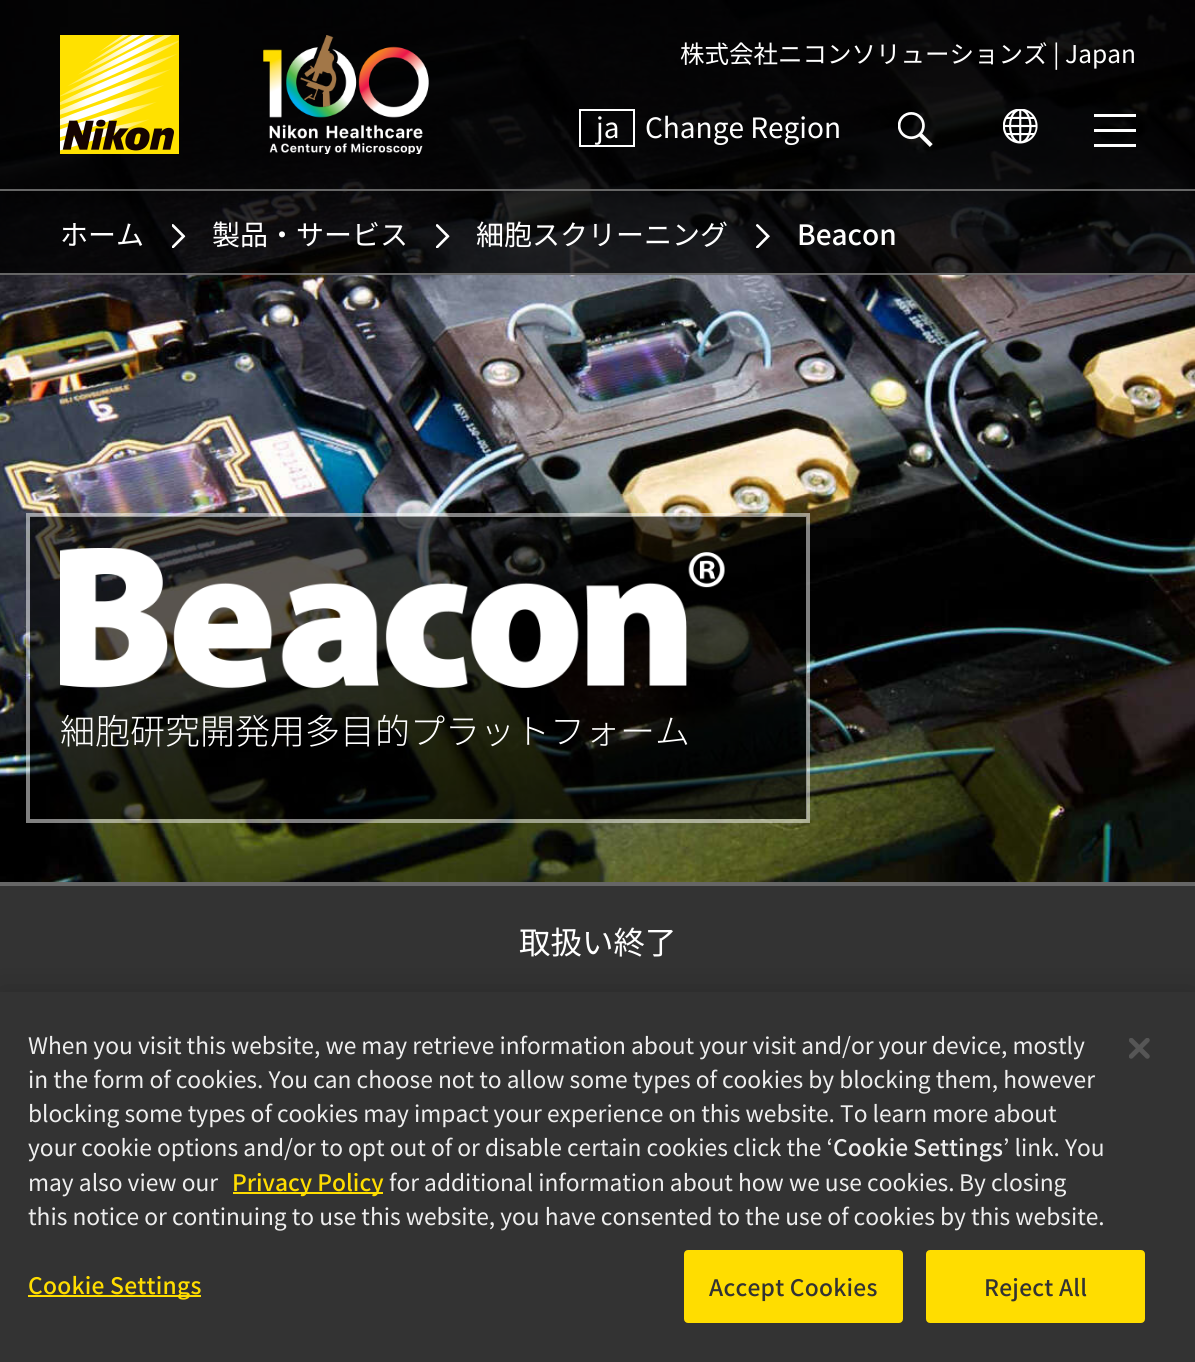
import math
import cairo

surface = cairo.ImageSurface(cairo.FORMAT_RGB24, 1195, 1362)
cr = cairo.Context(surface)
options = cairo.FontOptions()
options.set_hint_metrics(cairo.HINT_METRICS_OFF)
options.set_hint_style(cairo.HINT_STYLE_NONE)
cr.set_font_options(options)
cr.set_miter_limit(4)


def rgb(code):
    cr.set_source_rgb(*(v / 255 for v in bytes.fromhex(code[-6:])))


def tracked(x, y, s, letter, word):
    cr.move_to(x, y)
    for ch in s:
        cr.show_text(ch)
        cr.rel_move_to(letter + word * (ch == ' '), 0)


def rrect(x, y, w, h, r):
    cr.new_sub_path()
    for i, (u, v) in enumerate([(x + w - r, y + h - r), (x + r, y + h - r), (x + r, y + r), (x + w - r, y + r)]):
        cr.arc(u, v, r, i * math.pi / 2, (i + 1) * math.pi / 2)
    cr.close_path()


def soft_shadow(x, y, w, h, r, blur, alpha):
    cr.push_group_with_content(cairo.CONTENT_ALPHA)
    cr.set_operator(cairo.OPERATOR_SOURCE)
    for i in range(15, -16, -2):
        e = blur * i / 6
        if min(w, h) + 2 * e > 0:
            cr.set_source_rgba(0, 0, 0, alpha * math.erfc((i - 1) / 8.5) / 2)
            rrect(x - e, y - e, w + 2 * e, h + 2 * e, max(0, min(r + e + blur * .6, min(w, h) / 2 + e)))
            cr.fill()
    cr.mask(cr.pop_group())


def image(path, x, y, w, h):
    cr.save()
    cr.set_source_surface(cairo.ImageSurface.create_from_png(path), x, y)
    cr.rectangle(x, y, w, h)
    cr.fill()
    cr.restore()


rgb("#333333")
cr.paint()
image("img/8.png", 0, 0, 1195, 882)
cr.set_source_rgba(0, 0, 0, 0.8)
cr.rectangle(0, 0, 1195, 189)
cr.fill()
image("img/1.png", 60, 35, 119, 119)
image("img/2.png", 263, 35, 166, 119)
cr.rectangle(580, 110, 54, 36)
rgb("#ffffff")
cr.stroke()
image("img/3.png", 898, 112, 35, 35)
image("img/4.png", 1003, 109, 35, 35)
cr.rectangle(1094, 114, 42, 3)
cr.rectangle(1094, 129, 42, 3)
cr.rectangle(1094, 144, 42, 3)
cr.fill()
rgb("#666666")
cr.rectangle(0, 189, 1195, 2)
cr.fill()
cr.set_source_rgba(0, 0, 0, 0.8)
cr.rectangle(0, 191, 1195, 82)
cr.fill()
rgb("#666666")
cr.rectangle(0, 273, 1195, 2)
cr.fill()
image("img/5.png", 172, 224, 14, 24)
image("img/6.png", 436, 224, 14, 24)
image("img/7.png", 756, 224, 14, 24)
cr.rectangle(0, 882, 1195, 4)
cr.fill()
cr.set_source_rgba(0, 0, 0, 0.65)
cr.rectangle(30, 516, 777, 303)
cr.fill()
cr.rectangle(28, 515, 780, 306)
cr.set_source_rgba(1, 1, 1, 0.5)
cr.set_line_width(4)
cr.stroke()
image("img/9.png", 60, 548, 665, 140)
rgb("#000000")
soft_shadow(0, 992, 1195, 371, 0, 16, 0.2)
for x, y, w, h, color in [
    (0, 992, 1195, 370, "#333333"),
    (233, 1192, 150, 2, "#ffdd00"),
    (28, 1295, 173, 2, "#ffdd00"),
]:
    rgb(color)
    cr.rectangle(x, y, w, h)
    cr.fill()
rrect(685, 1251, 217, 71, 3)
cr.fill_preserve()
cr.set_line_width(2)
cr.stroke()
rrect(927, 1251, 217, 71, 3)
cr.fill_preserve()
cr.stroke()
image("img/10.png", 1129, 1038, 21, 21)
cr.select_font_face("Noto Sans JP")
cr.set_font_size(24.5)
rgb("#ffffff")
cr.move_to(680, 63)
cr.show_text("株式会社ニコンソリューションズ | Japan")
cr.set_font_size(28)
for x, y, s in [
    (596, 138, "ja"),
    (645, 138, "Change Region"),
    (60, 245, "ホーム"),
    (212, 245, "製品・サービス"),
    (476, 245, "細胞スクリーニング"),
]:
    cr.move_to(x, y)
    cr.show_text(s)
cr.select_font_face("Noto Sans JP Medium")
cr.move_to(797, 245)
cr.show_text("Beacon")
cr.select_font_face("Noto Sans JP Light")
cr.set_font_size(35)
cr.move_to(60, 744)
cr.show_text("細胞研究開発用多目的プラットフォーム")
cr.select_font_face("Noto Sans JP")
cr.set_font_size(31.5)
cr.move_to(519, 954)
cr.show_text("取扱い終了")
cr.set_font_size(22.75)
rgb("#eeeeee")
for x, y, s in [
    (28, 1054, "When you visit this website, we may retrieve information about your visit and/or your device, mostly"),
    (28, 1088, "in the form of cookies. You can choose not to allow some types of cookies by blocking them, however"),
    (28, 1122, "blocking some types of cookies may impact your experience on this website."),
    (840, 1122, "To learn more about"),
    (28, 1156, "your cookie options and/or to opt out of or disable certain cookies click the ‘"),
]:
    cr.move_to(x, y)
    cr.show_text(s)
cr.select_font_face("Noto Sans JP Medium")
cr.move_to(833, 1156)
cr.show_text("Cookie Settings")
cr.select_font_face("Noto Sans JP")
cr.move_to(1003, 1156)
cr.show_text("’ link. You")
cr.move_to(28, 1191)
cr.show_text("may also view our")
cr.select_font_face("Noto Sans JP Medium")
rgb("#ffdd00")
cr.move_to(232, 1191)
cr.show_text("Privacy Policy")
cr.select_font_face("Noto Sans JP")
rgb("#eeeeee")
for x, y, s in [
    (389, 1191, "for additional information about how we use cookies."),
    (959, 1191, "By closing"),
    (28, 1225, "this notice or continuing to use this website, you have consented to the use of cookies by this website."),
]:
    cr.move_to(x, y)
    cr.show_text(s)
cr.select_font_face("Noto Sans JP Medium")
rgb("#ffdd00")
tracked(28, 1294, "Cookie Settings", 0.25, 0)
rgb("#333333")
tracked(709, 1296, "Accept Cookies", 0.25, 0)
tracked(984, 1296, "Reject All", 0.25, 0)
surface.write_to_png("page.png")
